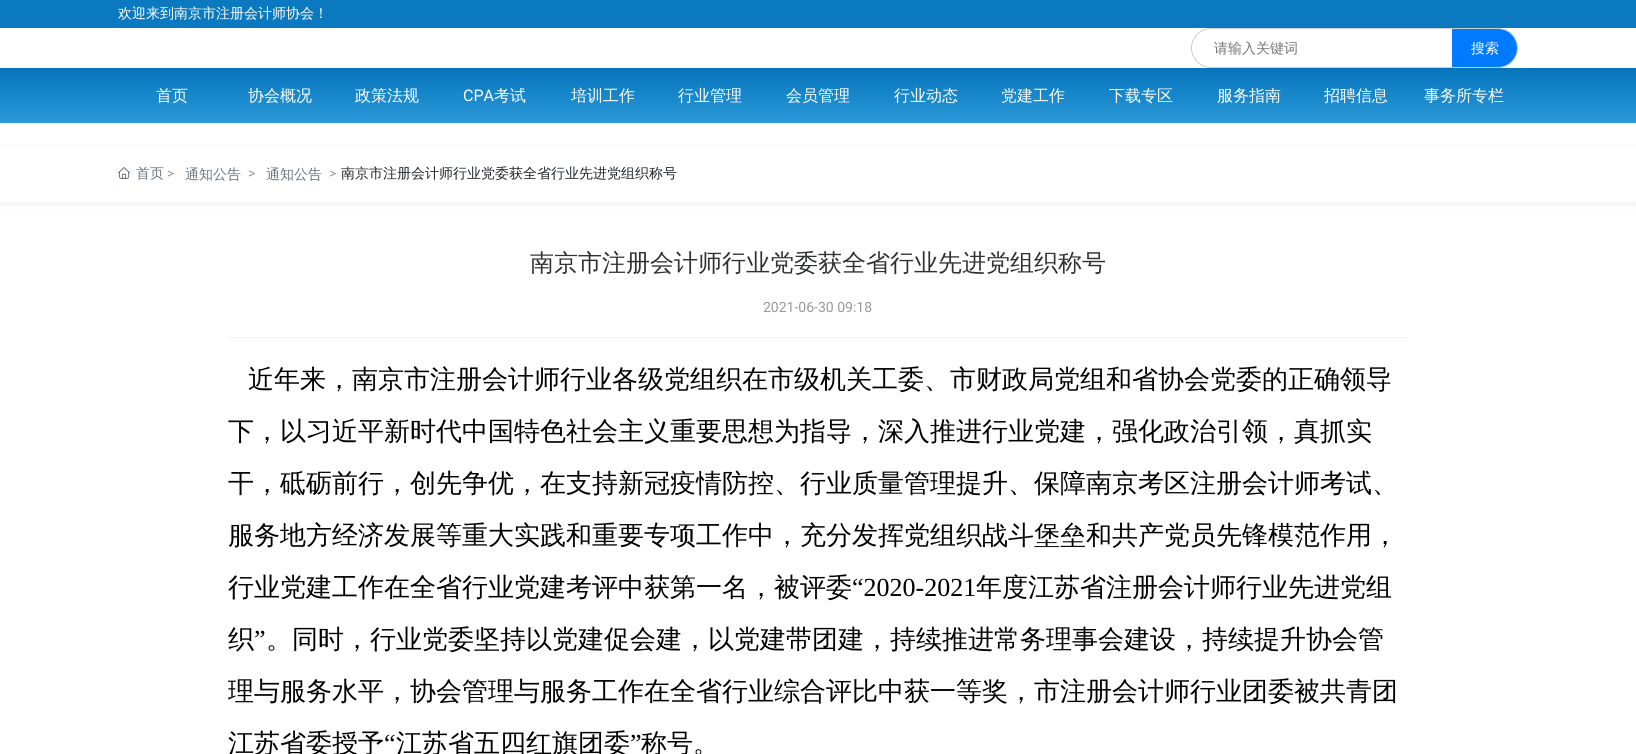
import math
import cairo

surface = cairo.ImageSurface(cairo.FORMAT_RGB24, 1636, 754)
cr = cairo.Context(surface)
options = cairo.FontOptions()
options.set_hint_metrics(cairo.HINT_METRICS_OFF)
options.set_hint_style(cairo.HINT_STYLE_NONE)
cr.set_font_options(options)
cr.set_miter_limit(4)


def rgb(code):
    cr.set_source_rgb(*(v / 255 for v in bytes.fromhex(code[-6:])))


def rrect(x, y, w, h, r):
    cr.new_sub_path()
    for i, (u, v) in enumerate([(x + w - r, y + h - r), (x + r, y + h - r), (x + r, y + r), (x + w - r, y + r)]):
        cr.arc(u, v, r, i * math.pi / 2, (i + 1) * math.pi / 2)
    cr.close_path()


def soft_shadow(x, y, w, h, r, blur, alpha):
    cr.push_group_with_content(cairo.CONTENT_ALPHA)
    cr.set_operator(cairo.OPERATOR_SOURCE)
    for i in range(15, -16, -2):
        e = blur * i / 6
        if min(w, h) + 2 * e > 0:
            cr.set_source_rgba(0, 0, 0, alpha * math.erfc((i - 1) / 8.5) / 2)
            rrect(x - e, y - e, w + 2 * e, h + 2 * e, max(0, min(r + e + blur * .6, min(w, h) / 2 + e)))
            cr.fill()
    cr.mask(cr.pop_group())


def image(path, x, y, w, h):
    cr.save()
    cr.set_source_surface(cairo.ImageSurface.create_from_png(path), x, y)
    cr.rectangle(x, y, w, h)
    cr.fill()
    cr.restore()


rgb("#ffffff")
cr.paint()
rgb("#0a79c0")
cr.rectangle(0, 0, 1636, 28)
cr.fill()
rrect(1191.5, 28.5, 326, 39, 19.5)
rgb("#cccccc")
cr.set_line_width(1)
cr.stroke()
rgb("#007bff")
cr.new_path()
cr.move_to(1452, 29)
cr.line_to(1498, 29)
cr.curve_to(1508.5, 29, 1517, 37.5, 1517, 48)
cr.curve_to(1517, 58.5, 1508.5, 67, 1498, 67)
cr.line_to(1452, 67)
cr.close_path()
cr.fill()
gradient = cairo.LinearGradient(818, 123, 818, 68)
gradient.add_color_stop_rgba(0, 0.165, 0.604, 0.851, 1)
gradient.add_color_stop_rgba(1, 0.02, 0.455, 0.737, 1)
cr.set_source(gradient)
cr.rectangle(0, 68, 1636, 55)
cr.fill()
cr.save()
cr.set_fill_rule(cairo.FILL_RULE_EVEN_ODD)
cr.new_path()
cr.move_to(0, 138)
cr.line_to(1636, 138)
cr.line_to(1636, 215)
cr.line_to(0, 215)
cr.close_path()
cr.move_to(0, 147)
cr.line_to(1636, 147)
cr.line_to(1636, 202)
cr.line_to(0, 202)
cr.close_path()
cr.clip()
rgb("#000000")
soft_shadow(-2, 147, 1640, 59, 0, 2.5, 0.05)
cr.restore()
image("img/1.png", 118, 167, 12, 12)
rgb("#f2f2f2")
cr.rectangle(228, 337, 1180, 1)
cr.fill()
cr.select_font_face("WenQuanYi Zen Hei Medium")
cr.set_font_size(14)
rgb("#ffffff")
cr.move_to(118, 18)
cr.show_text("欢迎来到南京市注册会计师协会！")
rgb("#757575")
cr.move_to(1214, 53)
cr.show_text("请输入关键词")
rgb("#ffffff")
cr.move_to(1471, 53)
cr.show_text("搜索")
cr.set_font_size(16)
for x, y, s in [
    (156, 101, "首页"),
    (248, 101, "协会概况"),
    (355, 101, "政策法规"),
]:
    cr.move_to(x, y)
    cr.show_text(s)
cr.select_font_face("Roboto")
cr.move_to(463, 101)
cr.show_text("CPA")
cr.select_font_face("WenQuanYi Zen Hei Medium")
for x, y, s in [
    (494, 101, "考试"),
    (571, 101, "培训工作"),
    (678, 101, "行业管理"),
    (786, 101, "会员管理"),
    (894, 101, "行业动态"),
    (1001, 101, "党建工作"),
    (1109, 101, "下载专区"),
    (1217, 101, "服务指南"),
    (1324, 101, "招聘信息"),
    (1424, 101, "事务所专栏"),
]:
    cr.move_to(x, y)
    cr.show_text(s)
cr.set_font_size(14)
rgb("#6c757d")
cr.move_to(136, 178)
cr.show_text("首页")
cr.select_font_face("Roboto")
rgb("#999999")
cr.move_to(167, 178)
cr.show_text(">")
cr.select_font_face("WenQuanYi Zen Hei Medium")
rgb("#6c757d")
cr.move_to(185, 179)
cr.show_text("通知公告")
cr.select_font_face("Roboto")
rgb("#999999")
cr.move_to(248, 178)
cr.show_text(">")
cr.select_font_face("WenQuanYi Zen Hei Medium")
rgb("#6c757d")
cr.move_to(266, 179)
cr.show_text("通知公告")
cr.select_font_face("Roboto")
rgb("#999999")
cr.move_to(329, 178)
cr.show_text(">")
cr.select_font_face("WenQuanYi Zen Hei Medium")
rgb("#212529")
cr.move_to(341, 178)
cr.show_text("南京市注册会计师行业党委获全省行业先进党组织称号")
cr.set_font_size(24)
rgb("#303133")
cr.move_to(530, 271)
cr.show_text("南京市注册会计师行业党委获全省行业先进党组织称号")
cr.select_font_face("Roboto")
cr.set_font_size(14)
rgb("#999999")
cr.move_to(763, 312)
cr.show_text("2021-06-30 09:18")
cr.select_font_face("WenQuanYi Zen Hei Medium")
cr.set_font_size(26)
rgb("#000000")
for x, y, s in [
    (248, 388, "近年来，南京市注册会计师行业各级党组织在市级机关工委、市财政局党组和省协会党委的正确领导"),
    (228, 440, "下，以习近平新时代中国特色社会主义重要思想为指导，深入推进行业党建，强化政治引领，真抓实"),
    (228, 492, "干，砥砺前行，创先争优，在支持新冠疫情防控、行业质量管理提升、保障南京考区注册会计师考试、"),
    (228, 544, "服务地方经济发展等重大实践和重要专项工作中，充分发挥党组织战斗堡垒和共产党员先锋模范作用，"),
    (228, 596, "行业党建工作在全省行业党建考评中获第一名，被评委"),
]:
    cr.move_to(x, y)
    cr.show_text(s)
cr.select_font_face("Liberation Serif")
cr.move_to(852, 596)
cr.show_text("“2020-2021")
cr.select_font_face("WenQuanYi Zen Hei Medium")
cr.move_to(976, 596)
cr.show_text("年度江苏省注册会计师行业先进党组")
cr.move_to(228, 648)
cr.show_text("织")
cr.select_font_face("Liberation Serif")
cr.move_to(254, 648)
cr.show_text("”")
cr.select_font_face("WenQuanYi Zen Hei Medium")
for x, y, s in [
    (266, 648, "。同时，行业党委坚持以党建促会建，以党建带团建，持续推进常务理事会建设，持续提升协会管"),
    (228, 700, "理与服务水平，协会管理与服务工作在全省行业综合评比中获一等奖，市注册会计师行业团委被共青团"),
    (228, 752, "江苏省委授予"),
]:
    cr.move_to(x, y)
    cr.show_text(s)
cr.select_font_face("Liberation Serif")
cr.move_to(384, 752)
cr.show_text("“")
cr.select_font_face("WenQuanYi Zen Hei Medium")
cr.move_to(396, 752)
cr.show_text("江苏省五四红旗团委")
cr.select_font_face("Liberation Serif")
cr.move_to(630, 752)
cr.show_text("”")
cr.select_font_face("WenQuanYi Zen Hei Medium")
cr.move_to(641, 752)
cr.show_text("称号。")
surface.write_to_png("page.png")
